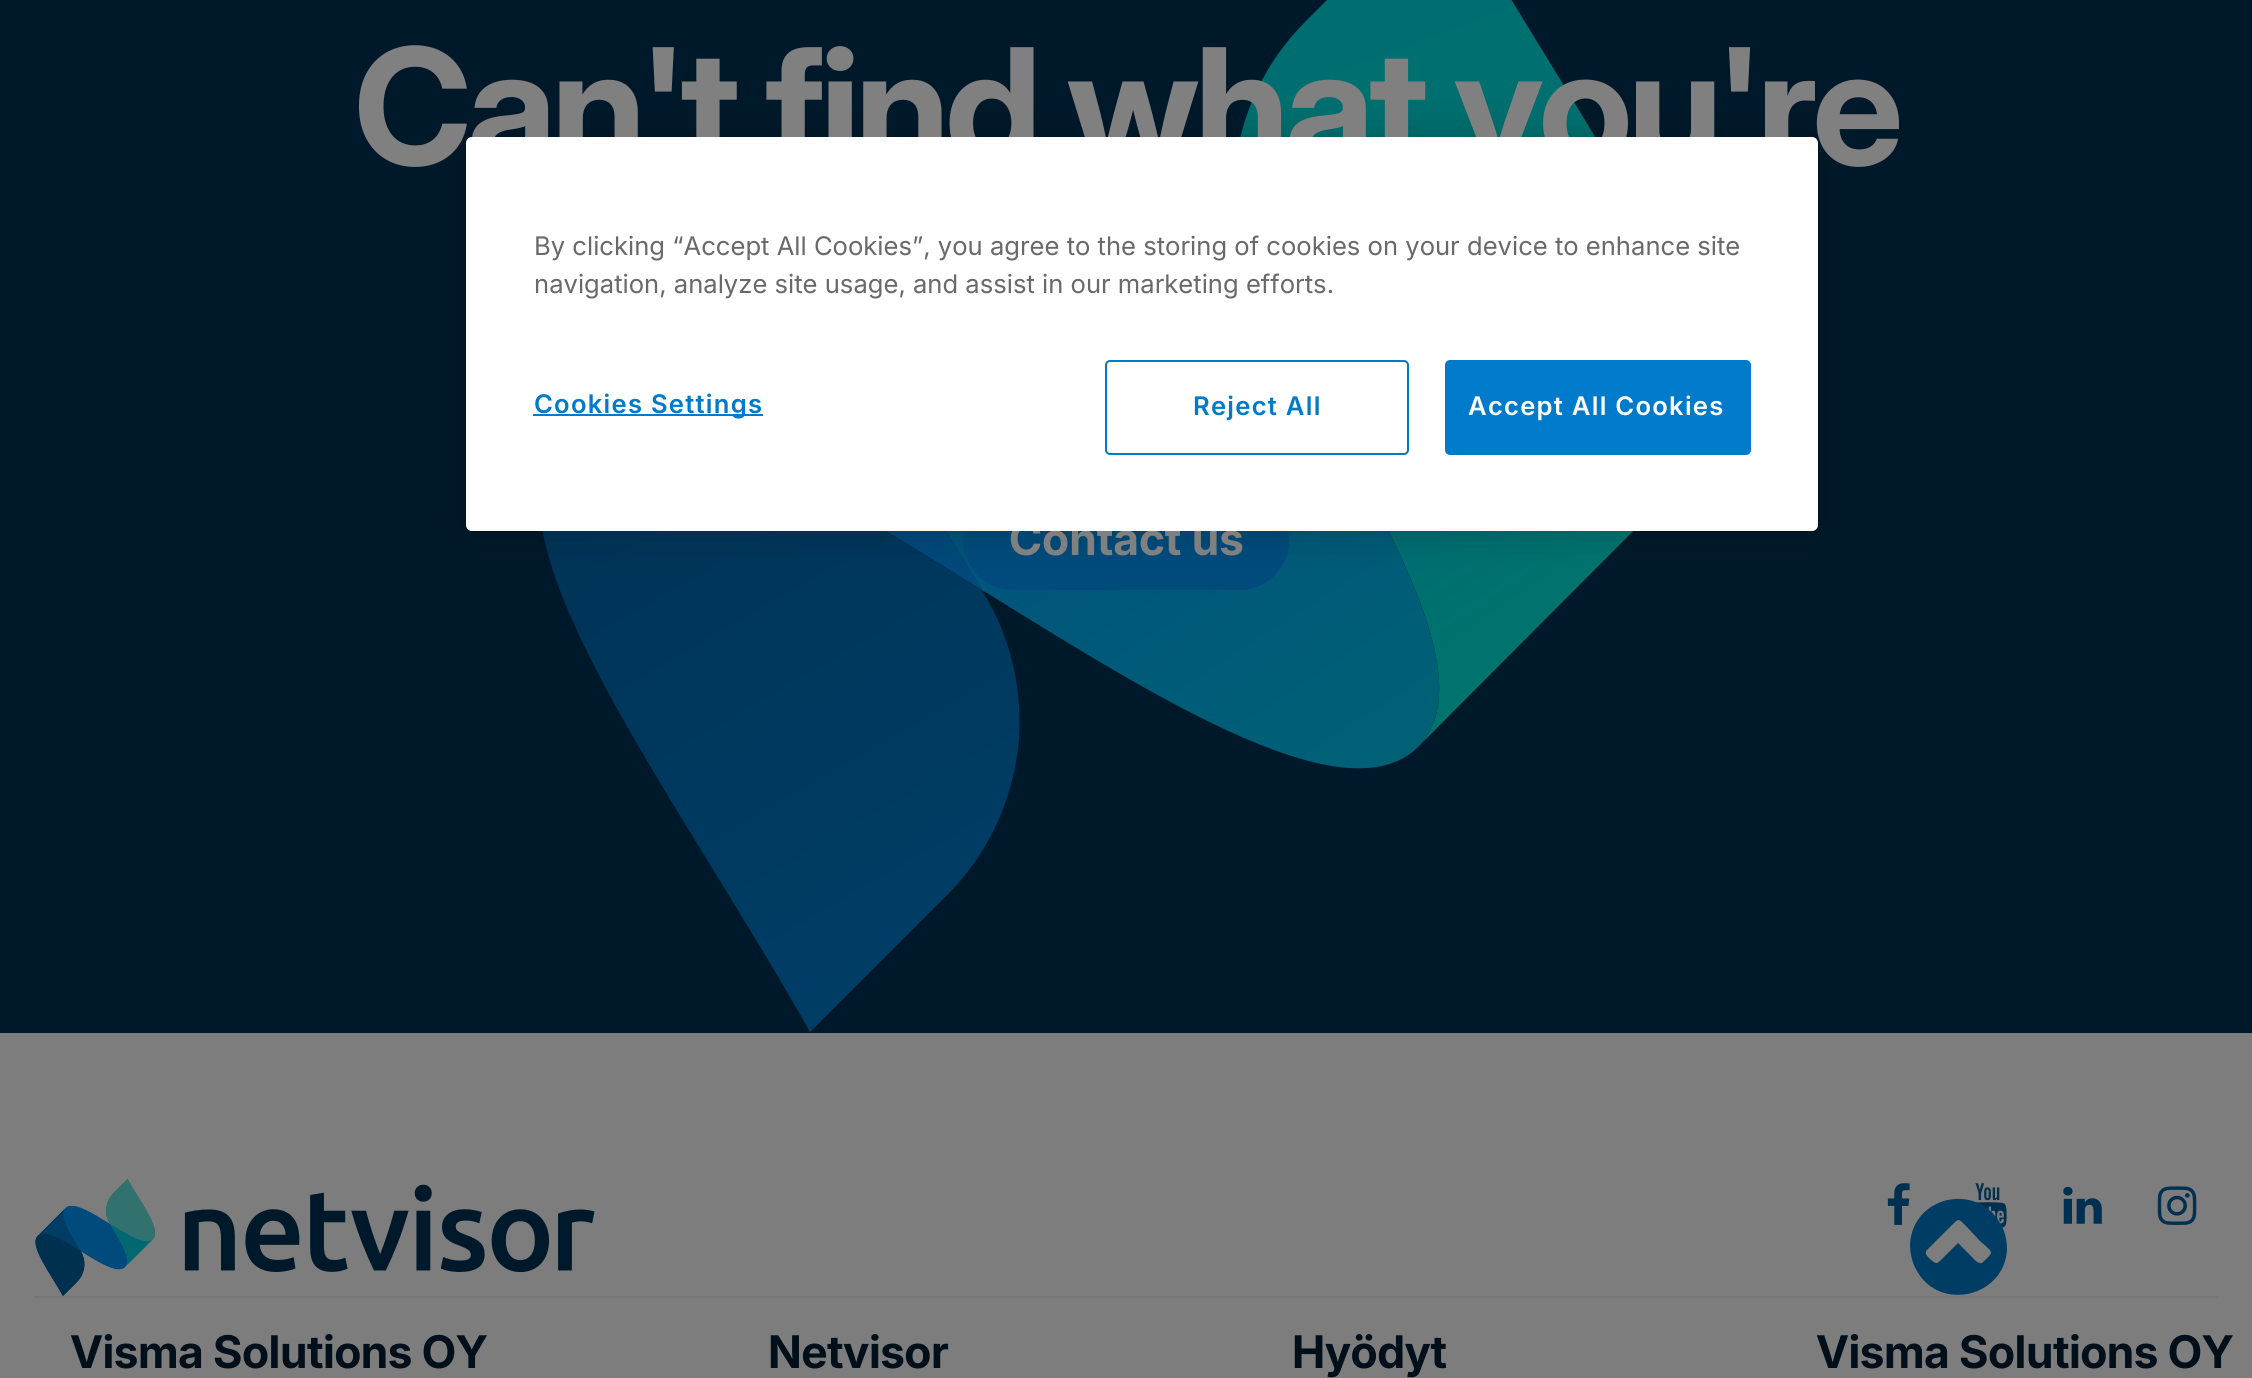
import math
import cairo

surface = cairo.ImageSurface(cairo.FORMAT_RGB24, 2252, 1378)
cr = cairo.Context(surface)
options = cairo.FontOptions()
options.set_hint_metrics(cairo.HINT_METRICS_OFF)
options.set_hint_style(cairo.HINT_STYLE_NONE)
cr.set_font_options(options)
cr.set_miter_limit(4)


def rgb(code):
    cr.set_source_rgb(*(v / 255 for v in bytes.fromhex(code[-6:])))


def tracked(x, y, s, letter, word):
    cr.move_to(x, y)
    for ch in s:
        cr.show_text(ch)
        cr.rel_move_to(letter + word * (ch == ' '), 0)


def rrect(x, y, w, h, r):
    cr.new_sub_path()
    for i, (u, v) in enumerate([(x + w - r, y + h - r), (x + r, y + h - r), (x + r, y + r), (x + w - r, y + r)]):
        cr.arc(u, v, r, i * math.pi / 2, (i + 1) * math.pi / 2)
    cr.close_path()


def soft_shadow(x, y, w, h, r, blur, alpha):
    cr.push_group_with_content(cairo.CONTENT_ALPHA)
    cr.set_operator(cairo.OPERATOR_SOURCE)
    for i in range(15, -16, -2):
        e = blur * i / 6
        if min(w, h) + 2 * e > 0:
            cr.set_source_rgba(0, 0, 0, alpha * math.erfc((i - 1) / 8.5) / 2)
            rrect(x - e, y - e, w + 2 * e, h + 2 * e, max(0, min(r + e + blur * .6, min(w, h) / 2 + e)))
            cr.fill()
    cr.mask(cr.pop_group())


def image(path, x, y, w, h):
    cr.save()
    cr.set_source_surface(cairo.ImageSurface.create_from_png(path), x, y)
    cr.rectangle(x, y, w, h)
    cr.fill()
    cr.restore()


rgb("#00192a")
cr.paint()
gradient = cairo.LinearGradient(970, 226, 1469, 995)
gradient.add_color_stop_rgba(0, 0, 0.294, 0.494, 1)
gradient.add_color_stop_rgba(1, 0, 0.412, 0.451, 1)
cr.set_source(gradient)
cr.new_path()
cr.move_to(835, 169)
cr.curve_to(850, 154, 870, 148, 894, 148)
cr.curve_to(983, 148, 1127, 237, 1269, 325)
cr.curve_to(1378, 502, 1486, 679, 1418, 747)
cr.curve_to(1348, 816, 1167, 705, 987, 593)
cr.line_to(983, 591)
cr.line_to(932, 508)
cr.curve_to(847, 366, 781, 235, 830, 175)
cr.close_path()
cr.fill()
gradient = cairo.LinearGradient(509, 308, 920, 1022)
gradient.add_color_stop_rgba(0, 0, 0.188, 0.318, 1)
gradient.add_color_stop_rgba(1, 0, 0.243, 0.404, 1)
cr.set_source(gradient)
cr.new_path()
cr.move_to(568, 437)
cr.curve_to(582, 426, 599, 421, 620, 421)
cr.curve_to(706, 421, 844, 505, 982, 590)
cr.line_to(983, 592)
cr.curve_to(1012, 639, 1024, 694, 1018, 749)
cr.curve_to(1011, 804, 987, 855, 948, 894)
cr.line_to(810, 1032)
cr.curve_to(781, 980, 747, 925, 714, 871)
cr.curve_to(603, 691, 492, 511, 561, 443)
cr.close_path()
cr.fill()
gradient = cairo.LinearGradient(580, 136, 987, 660)
gradient.add_color_stop_rgba(0, 0, 0.243, 0.404, 1)
gradient.add_color_stop_rgba(1, 0, 0.294, 0.494, 1)
cr.set_source(gradient)
cr.new_path()
cr.move_to(717, 287)
cr.line_to(830, 175)
cr.curve_to(782, 235, 847, 366, 932, 508)
cr.line_to(983, 590)
cr.line_to(982, 590)
cr.curve_to(811, 484, 640, 381, 568, 437)
cr.close_path()
cr.fill()
gradient = cairo.LinearGradient(1239, -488, 1599, 468)
gradient.add_color_stop_rgba(0, 0, 0.412, 0.451, 1)
gradient.add_color_stop_rgba(1, 0, 0.451, 0.431, 1)
cr.set_source(gradient)
cr.new_path()
cr.move_to(1443, -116)
cr.curve_to(1472, -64, 1506, -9, 1539, 45)
cr.curve_to(1650, 225, 1760, 404, 1691, 473)
cr.line_to(1691, 474)
cr.curve_to(1622, 540, 1448, 434, 1272, 327)
cr.line_to(1269, 325)
cr.curve_to(1210, 228, 1225, 102, 1305, 22)
cr.close_path()
cr.fill()
gradient = cairo.LinearGradient(1424, 455, 1523, 601)
gradient.add_color_stop_rgba(0, 0, 0.412, 0.451, 1)
gradient.add_color_stop_rgba(1, 0, 0.451, 0.431, 1)
cr.set_source(gradient)
cr.new_path()
cr.move_to(1418, 747)
cr.curve_to(1486, 679, 1378, 502, 1269, 325)
cr.line_to(1272, 327)
cr.curve_to(1448, 434, 1622, 540, 1690, 474)
cr.close_path()
cr.fill()
rgb("#004b7c")
rrect(963, 491, 326, 99, 49.5)
cr.fill()
rgb("#000000")
soft_shadow(466, 137, 1352, 394, 6, 20, 0.2)
rgb("#7d7d7d")
cr.rectangle(0, 1033, 2252, 345)
cr.fill()
image("img/3.png", 1975, 1183, 32, 45)
rgb("#003d65")
cr.new_path()
cr.move_to(1983, 1262)
cr.curve_to(1995, 1251, 1993, 1253, 1980, 1241)
cr.line_to(1966, 1226)
cr.curve_to(1958, 1218, 1959, 1218, 1951, 1226)
cr.line_to(1927, 1250)
cr.curve_to(1924, 1253, 1927, 1256, 1929, 1258)
cr.curve_to(1936, 1264, 1936, 1265, 1942, 1259)
cr.line_to(1958, 1243)
cr.line_to(1971, 1256)
cr.curve_to(1973, 1258, 1979, 1266, 1983, 1262)
cr.close_path()
cr.move_to(2000, 1223)
cr.curve_to(2005, 1231, 2007, 1240, 2007, 1250)
cr.curve_to(2004, 1297, 1940, 1312, 1917, 1271)
cr.curve_to(1912, 1263, 1910, 1253, 1910, 1244)
cr.curve_to(1913, 1196, 1976, 1182, 2000, 1223)
cr.close_path()
cr.fill()
image("img/1.png", 35, 1179, 560, 117)
image("img/2.png", 1887, 1183, 23, 42)
image("img/4.png", 2063, 1186, 39, 38)
image("img/5.png", 2157, 1186, 40, 39)
rgb("#777777")
cr.rectangle(34, 1296, 2185, 2)
cr.fill()
cr.select_font_face("Inter", cairo.FONT_SLANT_NORMAL, cairo.FONT_WEIGHT_BOLD)
cr.set_font_size(162)
rgb("#808080")
tracked(354, 165, "Can't find what you're", -4.9, 0)
cr.select_font_face("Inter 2", cairo.FONT_SLANT_NORMAL, cairo.FONT_WEIGHT_BOLD)
cr.set_font_size(45)
cr.move_to(1009, 555)
cr.show_text("Contact us")
rgb("#ffffff")
rrect(466, 137, 1352, 394, 6)
cr.fill()
cr.select_font_face("Inter")
cr.set_font_size(25.6)
rgb("#696969")
cr.move_to(534, 255)
cr.show_text("By clicking “Accept All Cookies”, you agree to the storing of cookies on your device to enhance site")
cr.move_to(534, 293)
cr.show_text("navigation, analyze site usage, and assist in our marketing efforts.")
rgb("#007aca")
cr.rectangle(533, 414, 230, 2)
cr.fill()
cr.select_font_face("Inter SemiBold")
tracked(534, 413, "Cookies Settings", 1.25, 0)
rrect(1106, 361, 302, 93, 4)
cr.stroke()
tracked(1193, 415, "Reject All", 1.25, 0)
rrect(1446, 361, 304, 93, 4)
cr.fill_preserve()
cr.stroke()
rgb("#ffffff")
tracked(1468, 415, "Accept All Cookies", 1.25, 0)
cr.select_font_face("Inter 2", cairo.FONT_SLANT_NORMAL, cairo.FONT_WEIGHT_BOLD)
cr.set_font_size(45)
rgb("#000f1a")
for x, y, s in [
    (70, 1368, "Visma Solutions OY"),
    (768, 1368, "Netvisor"),
    (1292, 1368, "Hyödyt"),
    (1816, 1368, "Visma Solutions OY"),
]:
    tracked(x, y, s, -0.5, 0)
surface.write_to_png("page.png")
